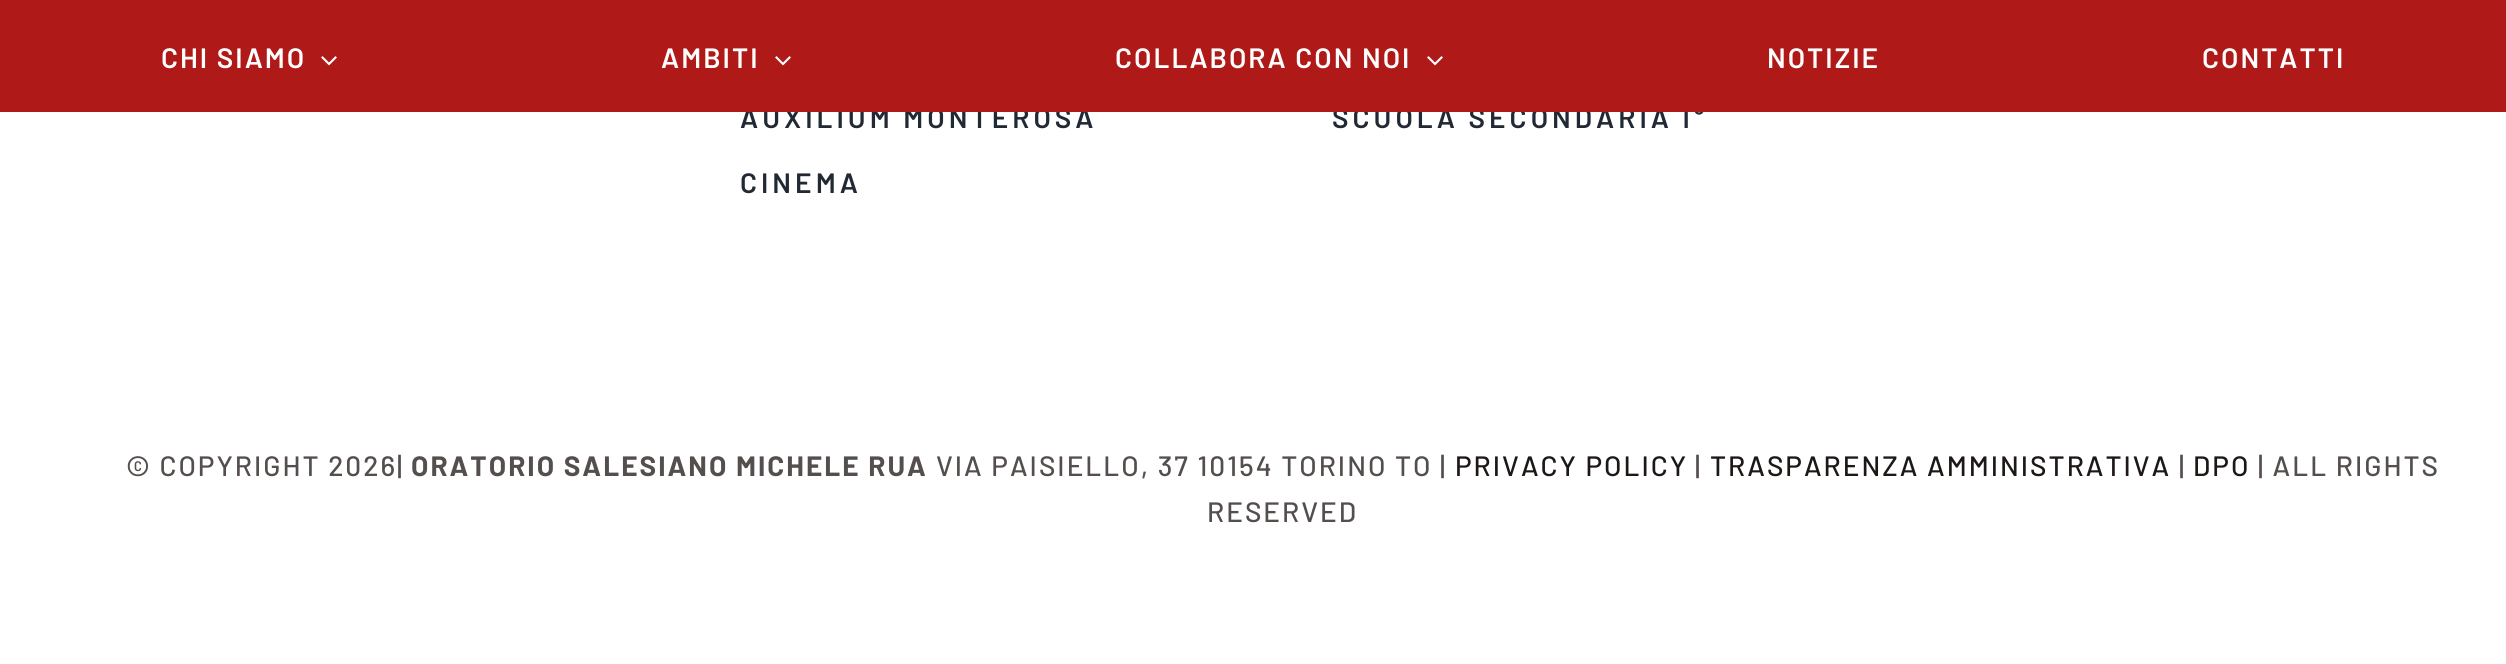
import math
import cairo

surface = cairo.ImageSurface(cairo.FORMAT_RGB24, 2506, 664)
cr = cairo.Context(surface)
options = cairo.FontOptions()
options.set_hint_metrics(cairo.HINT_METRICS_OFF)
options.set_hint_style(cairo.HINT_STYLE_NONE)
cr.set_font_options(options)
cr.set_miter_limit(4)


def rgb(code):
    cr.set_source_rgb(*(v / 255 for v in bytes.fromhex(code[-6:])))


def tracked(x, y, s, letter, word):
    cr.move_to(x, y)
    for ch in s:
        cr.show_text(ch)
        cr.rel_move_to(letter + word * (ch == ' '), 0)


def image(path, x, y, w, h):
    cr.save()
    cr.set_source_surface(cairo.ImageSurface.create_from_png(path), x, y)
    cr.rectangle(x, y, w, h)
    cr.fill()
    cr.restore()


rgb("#ffffff")
cr.paint()
cr.select_font_face("Barlow SemiBold")
cr.set_font_size(28)
rgb("#212934")
for x, y, s in [
    (740, 128, "AUXILIUM MONTEROSA"),
    (740, 193, "CINEMA"),
    (1332, 128, "SCUOLA SECONDARIA I°"),
]:
    tracked(x, y, s, 4, 0)
rgb("#af1917")
cr.rectangle(0, 0, 2506, 112)
cr.fill()
rgb("#ffffff")
tracked(2202, 68, "CONTATTI", 2, 0)
tracked(1767, 68, "NOTIZIE", 2, 0)
image("img/1.png", 1427, 56, 16, 10)
tracked(1115, 68, "COLLABORA CON NOI", 2, 0)
image("img/1.png", 775, 56, 16, 10)
tracked(661, 68, "AMBITI", 2, 0)
image("img/1.png", 321, 56, 16, 10)
tracked(161, 68, "CHI SIAMO", 2, 0)
cr.select_font_face("Barlow Medium")
rgb("#544e4c")
tracked(126, 476, "© COPYRIGHT 2026|", 2, 0)
cr.select_font_face("Barlow", cairo.FONT_SLANT_NORMAL, cairo.FONT_WEIGHT_BOLD)
tracked(411, 476, "ORATORIO SALESIANO MICHELE RUA", 2, 0)
cr.select_font_face("Barlow Medium")
tracked(936, 476, "VIA PAISIELLO, 37 10154 TORINO TO |", 2, 0)
rgb("#1d1816")
tracked(1455, 476, "PRIVACY POLICY", 2, 0)
rgb("#544e4c")
tracked(1695, 476, "|", 2, 0)
rgb("#1d1816")
tracked(1710, 476, "TRASPARENZA AMMINISTRATIVA", 2, 0)
rgb("#544e4c")
tracked(2179, 476, "|", 2, 0)
rgb("#1d1816")
tracked(2193, 476, "DPO", 2, 0)
rgb("#544e4c")
tracked(2258, 476, "| ALL RIGHTS", 2, 0)
tracked(1207, 522, "RESERVED", 2, 0)
surface.write_to_png("page.png")
